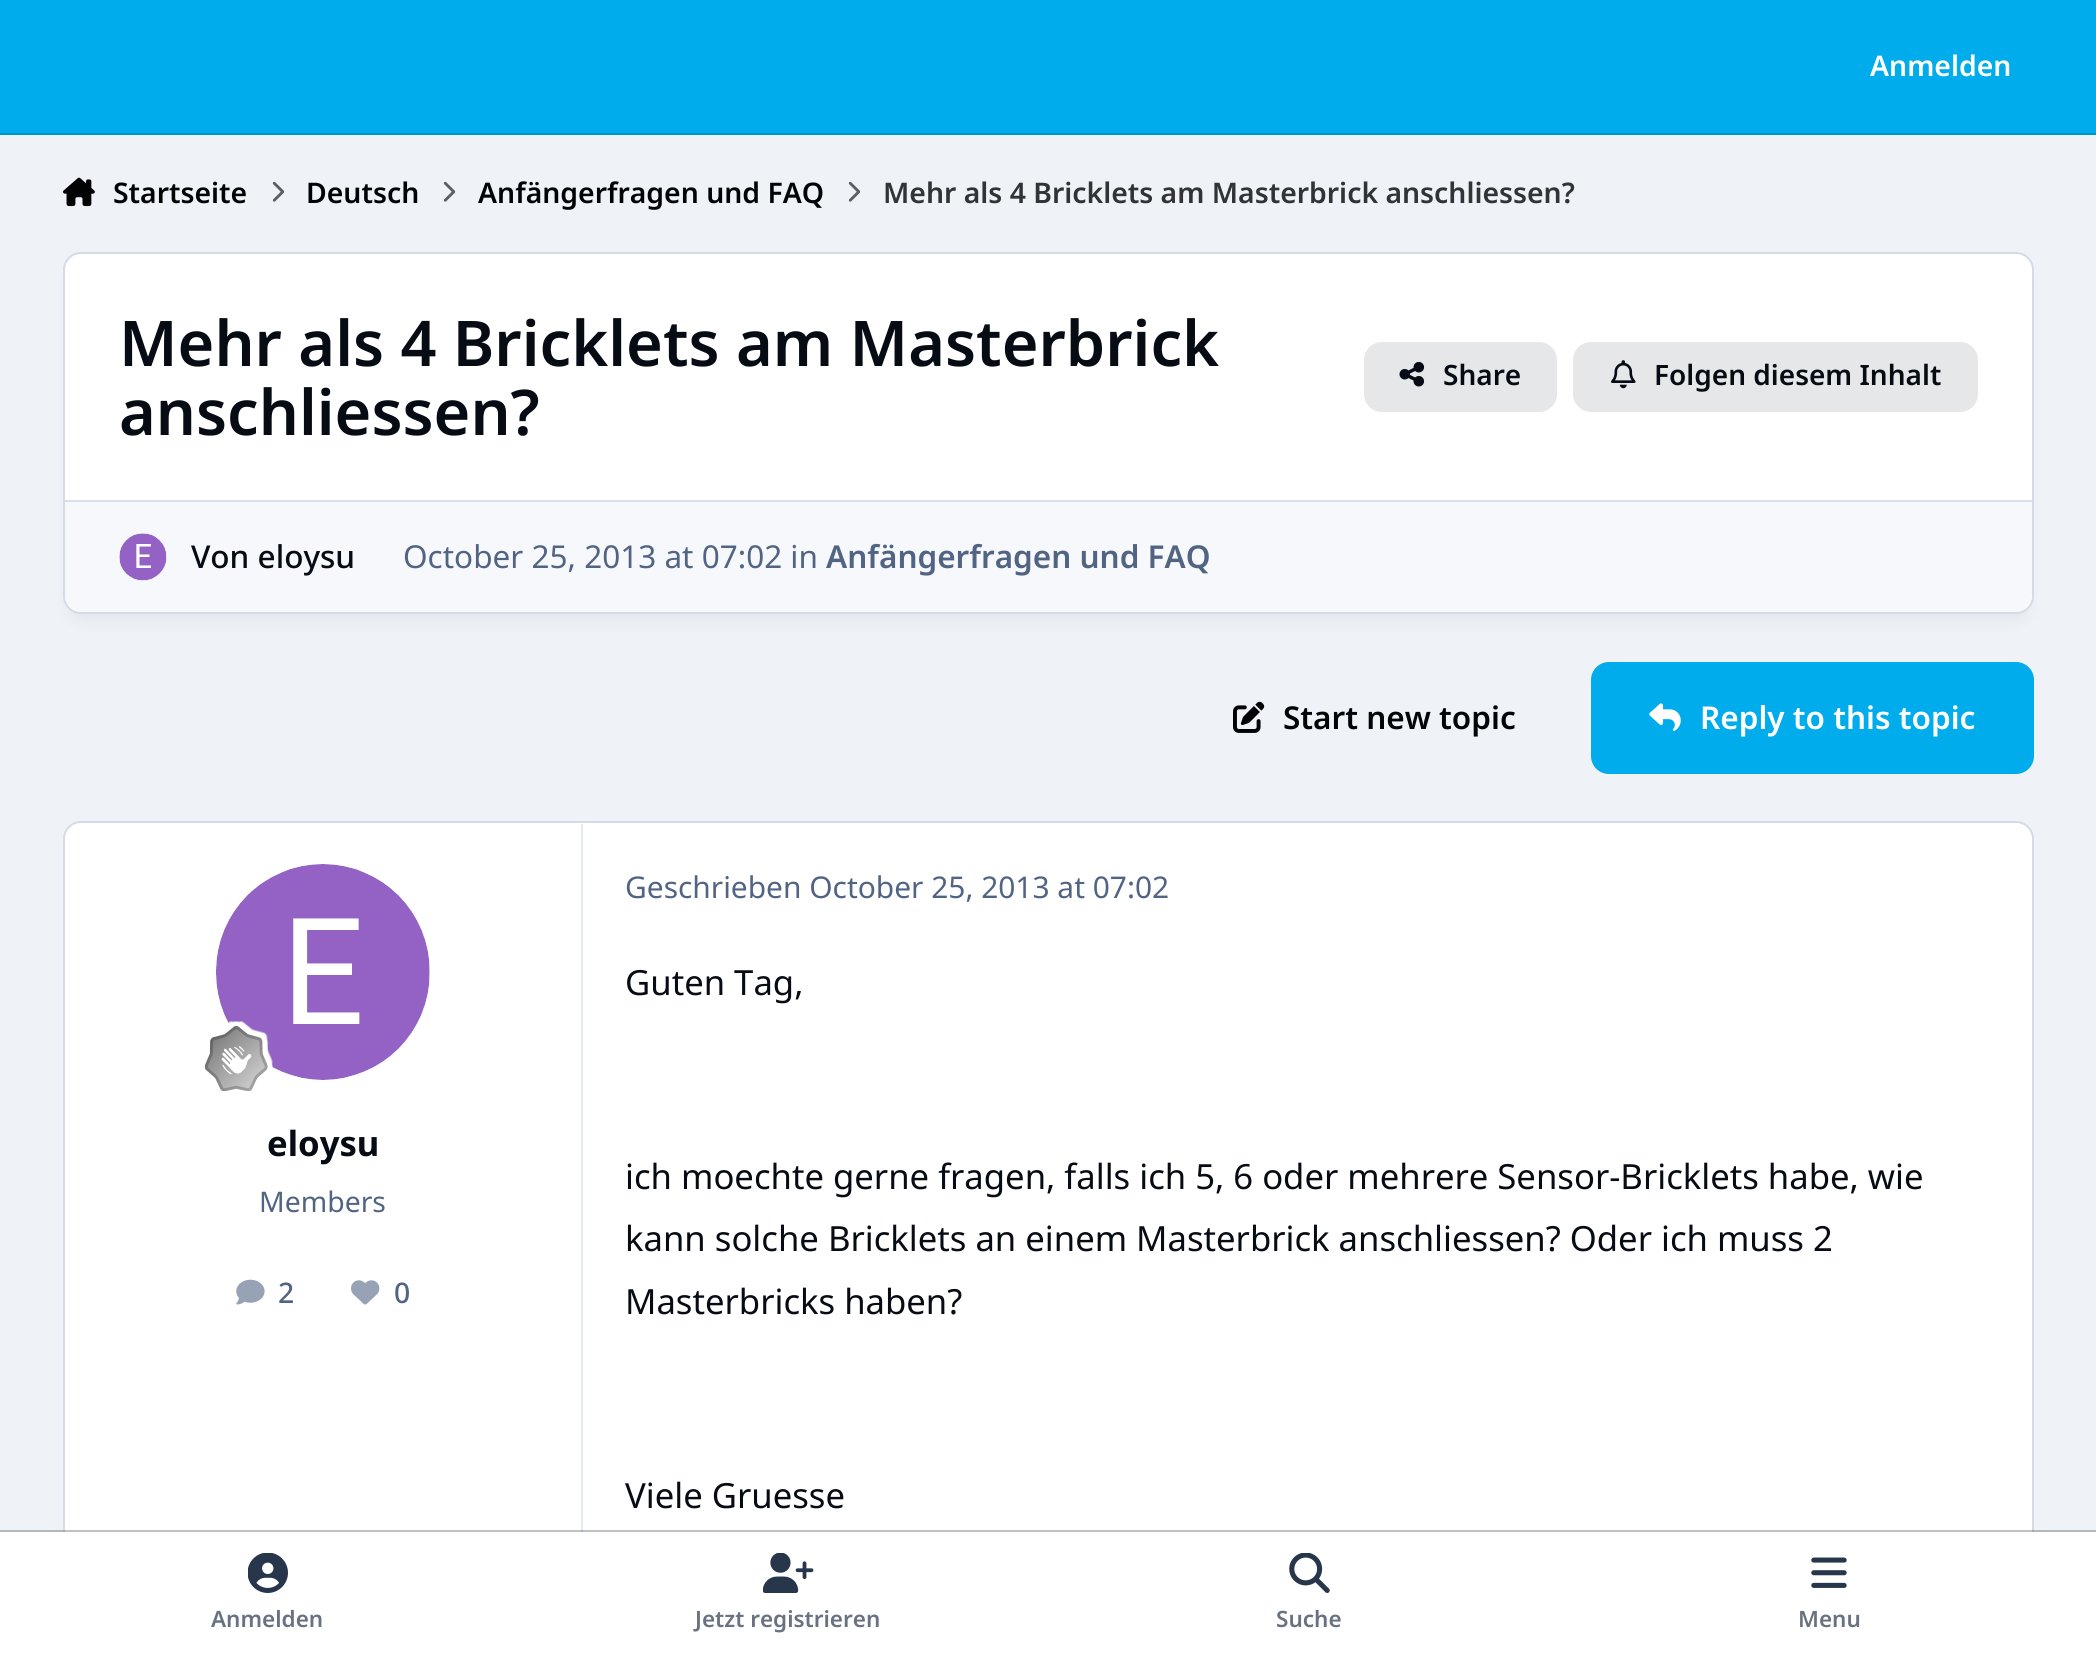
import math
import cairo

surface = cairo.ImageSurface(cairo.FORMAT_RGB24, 2096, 1655)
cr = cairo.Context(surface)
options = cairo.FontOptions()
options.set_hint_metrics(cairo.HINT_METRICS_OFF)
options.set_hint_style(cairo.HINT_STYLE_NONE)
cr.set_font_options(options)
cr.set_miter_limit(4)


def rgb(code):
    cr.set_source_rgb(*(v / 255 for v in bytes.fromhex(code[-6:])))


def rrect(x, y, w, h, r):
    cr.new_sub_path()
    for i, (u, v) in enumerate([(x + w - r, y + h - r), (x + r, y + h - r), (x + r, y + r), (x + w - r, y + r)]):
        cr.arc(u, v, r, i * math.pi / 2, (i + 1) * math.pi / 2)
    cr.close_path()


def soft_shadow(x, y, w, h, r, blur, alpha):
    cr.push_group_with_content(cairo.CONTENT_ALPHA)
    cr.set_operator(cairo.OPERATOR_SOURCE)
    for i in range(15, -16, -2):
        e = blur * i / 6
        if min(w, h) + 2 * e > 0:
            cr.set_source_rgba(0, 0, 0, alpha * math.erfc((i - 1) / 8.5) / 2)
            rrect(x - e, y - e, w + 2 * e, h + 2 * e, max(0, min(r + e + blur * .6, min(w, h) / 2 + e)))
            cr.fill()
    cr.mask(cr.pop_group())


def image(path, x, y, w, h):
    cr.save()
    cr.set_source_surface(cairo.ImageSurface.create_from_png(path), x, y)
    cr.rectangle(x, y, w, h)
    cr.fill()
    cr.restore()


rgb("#eff2f7")
cr.paint()
rgb("#00aceb")
cr.rectangle(0, 0, 2096, 133)
cr.fill()
rgb("#0194cb")
cr.rectangle(0, 133, 2096, 2)
cr.fill()
image("img/1.png", 63, 177, 32, 30)
image("img/2.png", 272, 181, 13, 21)
image("img/2.png", 443, 181, 13, 21)
image("img/2.png", 848, 181, 13, 21)
rgb("#01030a")
soft_shadow(70, 272, 1957, 349, 11, 8, 0.05)
rgb("#ffffff")
rrect(64, 253, 1969, 360, 17)
cr.fill_preserve()
rgb("#d5dbe6")
cr.stroke()
rgb("#e6e7e8")
rrect(1364, 342, 193, 70, 18)
cr.fill()
image("img/3.png", 1399, 361, 26, 26)
rrect(1573, 342, 405, 70, 18)
cr.fill()
image("img/4.png", 1611, 360, 25, 29)
rgb("#f7f8fb")
cr.new_path()
cr.move_to(65, 500)
cr.line_to(2032, 500)
cr.line_to(2032, 594)
cr.curve_to(2032, 604, 2024, 612, 2014, 612)
cr.line_to(83, 612)
cr.curve_to(73, 612, 65, 604, 65, 594)
cr.close_path()
cr.fill()
rgb("#d7dfea")
cr.rectangle(65, 500, 1967, 2)
cr.fill()
rgb("#e5eaf2")
cr.arc(143, 557, 24, 0, 2 * math.pi)
cr.fill()
image("img/5.png", 119, 533, 48, 48)
image("img/6.png", 1233, 701, 32, 32)
rgb("#00aceb")
rrect(1591, 662, 443, 112, 18)
cr.fill()
image("img/7.png", 1649, 703, 32, 28)
rgb("#ffffff")
rrect(64, 822, 1969, 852, 17)
cr.fill_preserve()
rgb("#d5dbe6")
cr.stroke()
rgb("#e5eaf2")
cr.rectangle(581, 824, 2, 708)
cr.fill()
rrect(216, 864, 214, 216, 107)
cr.fill()
image("img/8.png", 216, 864, 214, 216)
image("img/9.png", 205, 1021, 68, 70)
image("img/10.png", 236, 1279, 29, 26)
image("img/11.png", 351, 1280, 29, 25)
cr.set_source_rgba(0.024, 0.043, 0.078, 0.25)
cr.rectangle(0, 1530, 2096, 2)
cr.fill()
rgb("#ffffff")
cr.rectangle(0, 1532, 2096, 123)
cr.fill()
image("img/12.png", 248, 1553, 40, 40)
image("img/13.png", 763, 1553, 51, 40)
image("img/14.png", 1289, 1553, 41, 40)
image("img/15.png", 1811, 1557, 36, 31)
cr.select_font_face("Noto Sans SemiBold")
cr.set_font_size(28.35)
cr.move_to(1870, 76)
cr.show_text("Anmelden")
rgb("#020305")
for x, y, s in [
    (113, 203, "Startseite"),
    (306, 203, "Deutsch"),
    (478, 203, "Anfängerfragen und FAQ"),
]:
    cr.move_to(x, y)
    cr.show_text(s)
rgb("#313335")
cr.move_to(883, 203)
cr.show_text("Mehr als 4 Bricklets am Masterbrick anschliessen?")
cr.set_font_size(63)
rgb("#060b14")
cr.move_to(119, 366)
cr.show_text("Mehr als 4 Bricklets am Masterbrick")
cr.move_to(119, 435)
cr.show_text("anschliessen?")
cr.set_font_size(28)
cr.move_to(1443, 385)
cr.show_text("Share")
cr.move_to(1654, 385)
cr.show_text("Folgen diesem Inhalt")
cr.select_font_face("Noto Sans Medium")
cr.set_font_size(31.5)
cr.move_to(191, 568)
cr.show_text("Von eloysu")
cr.select_font_face("Noto Sans")
rgb("#516483")
cr.move_to(403, 568)
cr.show_text("October 25, 2013 at 07:02 in")
cr.select_font_face("Noto Sans SemiBold")
cr.move_to(826, 568)
cr.show_text("Anfängerfragen und FAQ")
rgb("#020305")
cr.move_to(1283, 729)
cr.show_text("Start new topic")
rgb("#ffffff")
cr.move_to(1700, 729)
cr.show_text("Reply to this topic")
cr.select_font_face("Noto Sans", cairo.FONT_SLANT_NORMAL, cairo.FONT_WEIGHT_BOLD)
cr.set_font_size(34.65)
rgb("#060b14")
cr.move_to(267, 1156)
cr.show_text("eloysu")
cr.select_font_face("Noto Sans")
cr.set_font_size(28.35)
rgb("#516483")
cr.move_to(259, 1212)
cr.show_text("Members")
cr.select_font_face("Noto Sans Medium")
cr.move_to(278, 1303)
cr.show_text("2")
cr.move_to(394, 1303)
cr.show_text("0")
cr.select_font_face("Noto Sans")
cr.set_font_size(29.9)
cr.move_to(625, 898)
cr.show_text("Geschrieben October 25, 2013 at 07:02")
cr.set_font_size(34.65)
rgb("#060b14")
for x, y, s in [
    (625, 995, "Guten Tag,"),
    (625, 1189, "ich moechte gerne fragen, falls ich 5, 6 oder mehrere Sensor-Bricklets habe, wie"),
    (625, 1251, "kann solche Bricklets an einem Masterbrick anschliessen? Oder ich muss 2"),
    (625, 1314, "Masterbricks haben?"),
    (625, 1508, "Viele Gruesse"),
]:
    cr.move_to(x, y)
    cr.show_text(s)
cr.select_font_face("Noto Sans SemiBold")
cr.set_font_size(22.5)
rgb("#697282")
for x, y, s in [
    (211, 1627, "Anmelden"),
    (695, 1627, "Jetzt registrieren"),
    (1276, 1627, "Suche"),
    (1798, 1627, "Menu"),
]:
    cr.move_to(x, y)
    cr.show_text(s)
surface.write_to_png("page.png")
